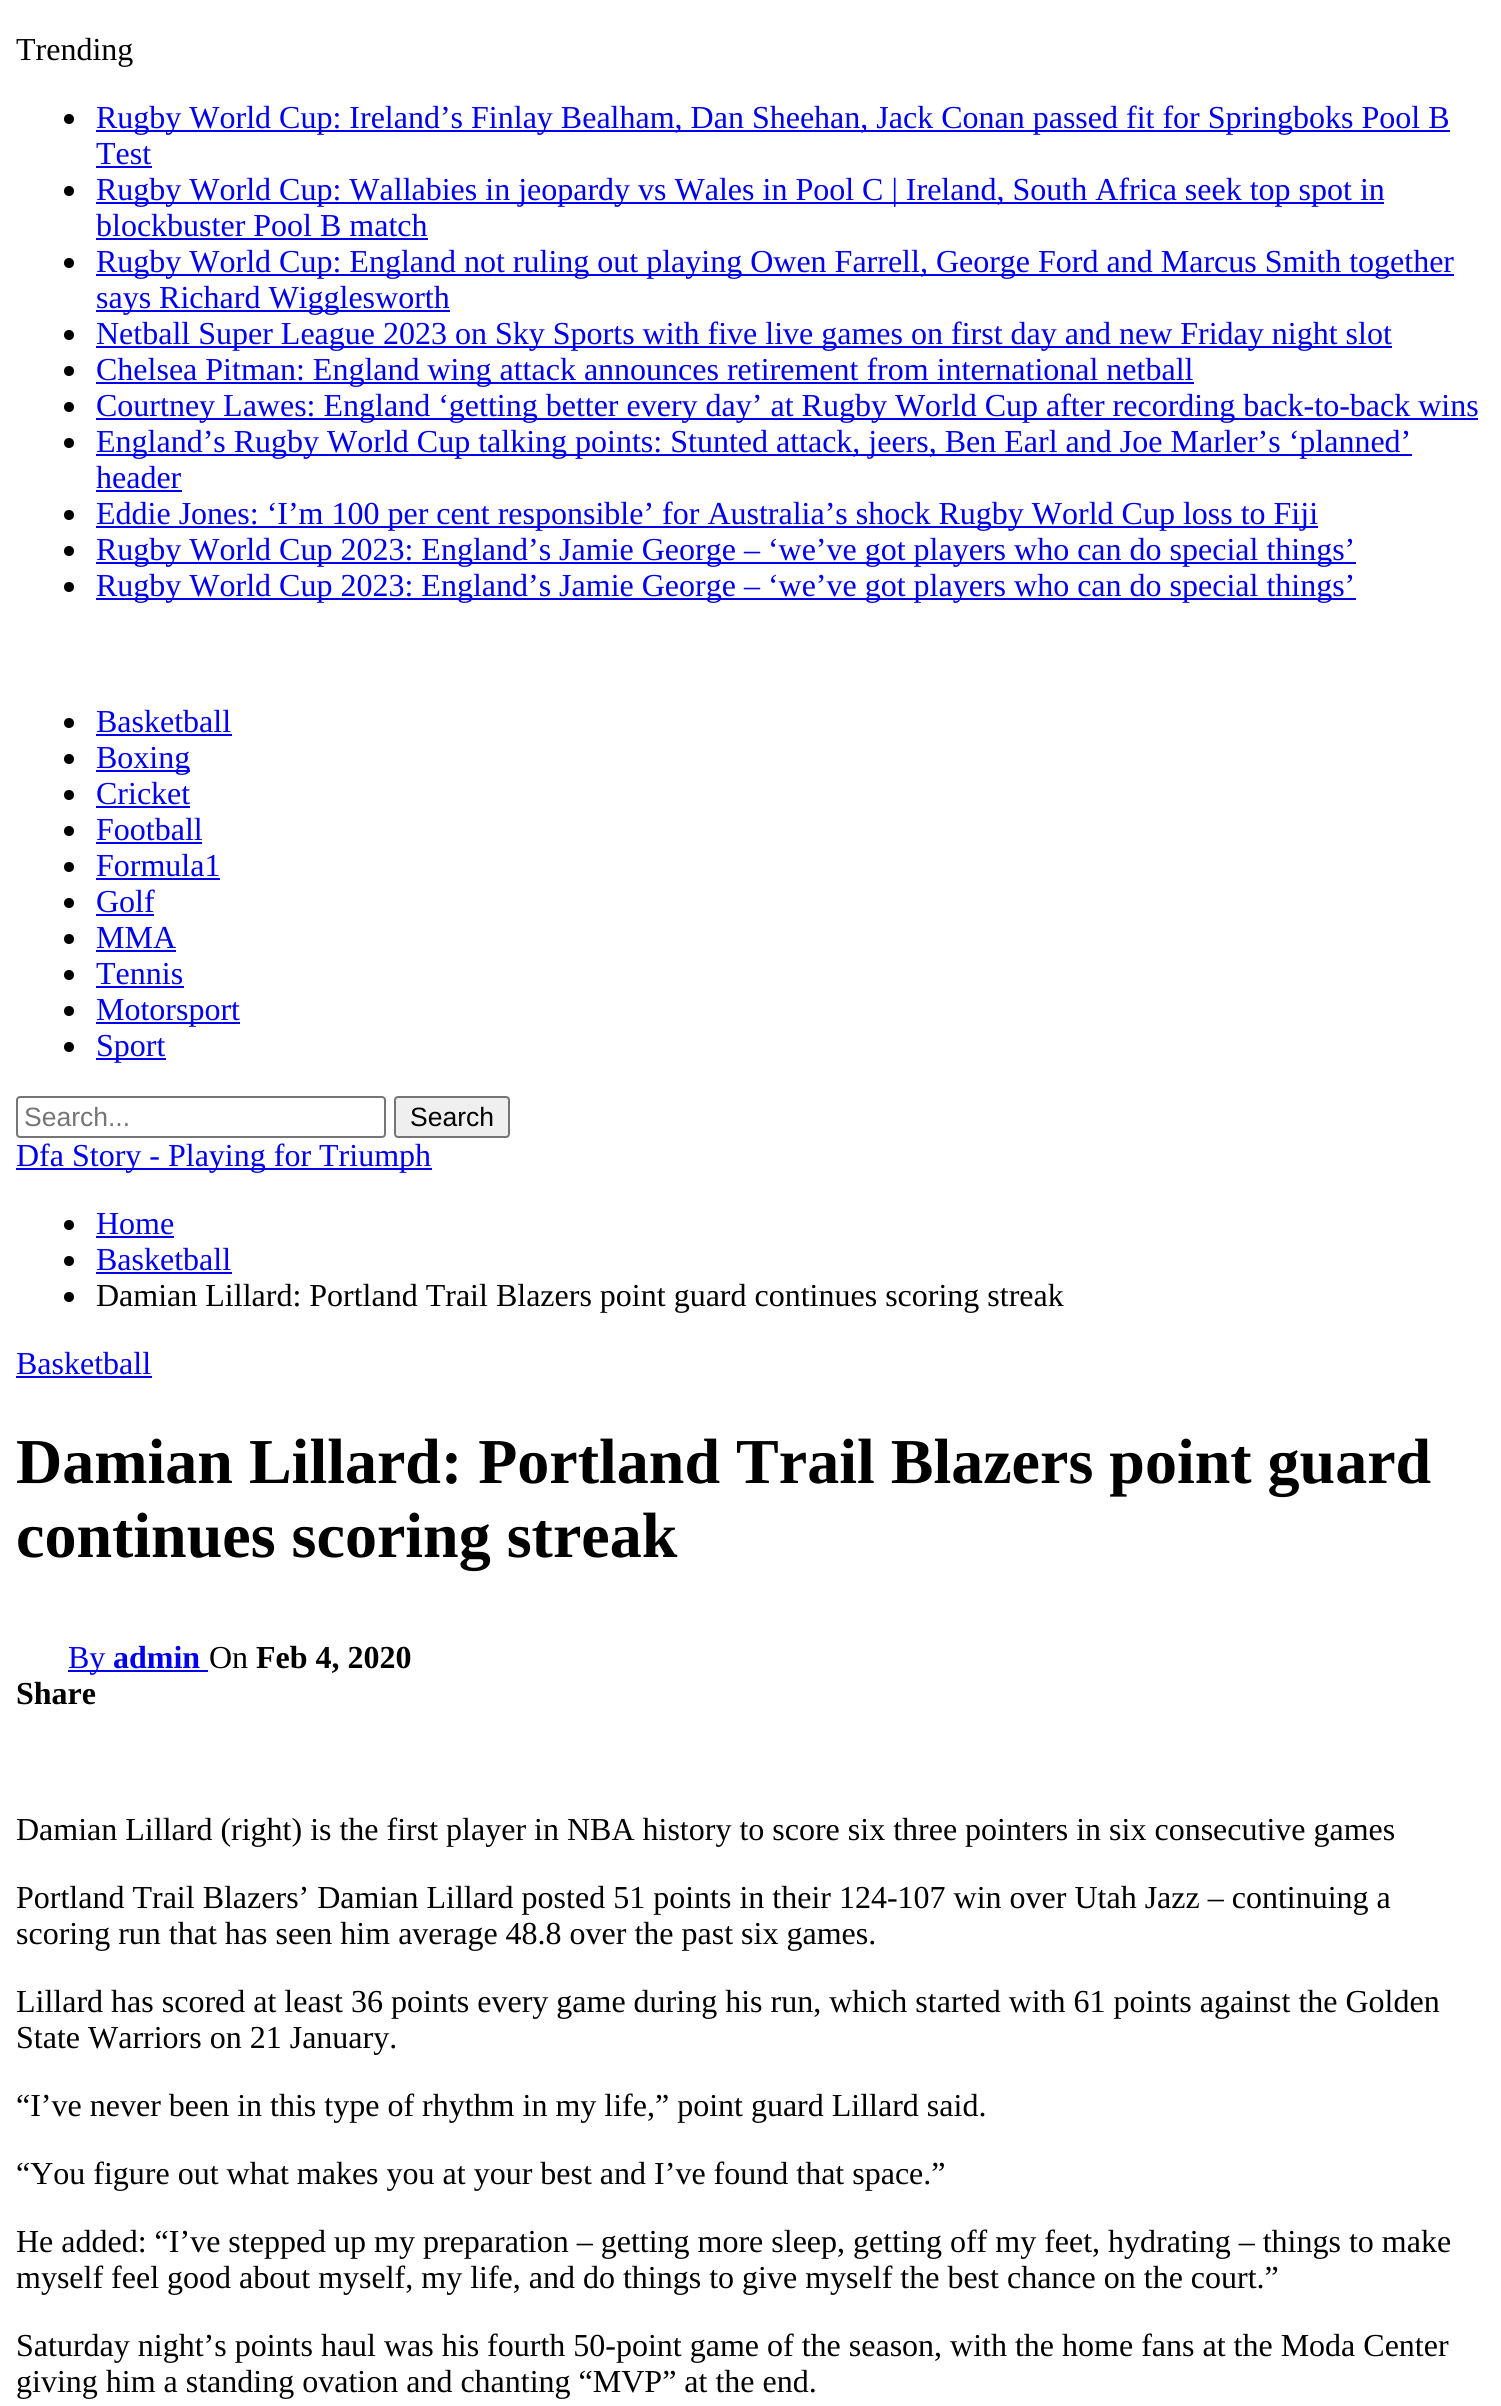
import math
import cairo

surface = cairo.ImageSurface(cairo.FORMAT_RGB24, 1501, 2406)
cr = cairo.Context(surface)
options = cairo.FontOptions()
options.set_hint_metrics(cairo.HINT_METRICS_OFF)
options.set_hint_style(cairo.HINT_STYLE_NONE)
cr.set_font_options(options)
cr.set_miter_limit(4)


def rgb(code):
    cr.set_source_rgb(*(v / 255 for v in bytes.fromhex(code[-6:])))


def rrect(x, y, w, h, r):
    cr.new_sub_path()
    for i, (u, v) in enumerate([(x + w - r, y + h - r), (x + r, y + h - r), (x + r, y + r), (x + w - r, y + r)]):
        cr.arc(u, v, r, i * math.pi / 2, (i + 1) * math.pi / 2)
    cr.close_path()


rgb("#ffffff")
cr.paint()
rgb("#000000")
cr.arc(69, 119, 5, 0, 2 * math.pi)
cr.fill()
rgb("#0000ee")
cr.rectangle(96, 130, 1354, 2)
cr.fill()
cr.rectangle(96, 166, 56, 2)
cr.fill()
rgb("#000000")
cr.arc(69, 191, 5, 0, 2 * math.pi)
cr.fill()
rgb("#0000ee")
cr.rectangle(96, 202, 1288, 2)
cr.fill()
cr.rectangle(96, 238, 332, 2)
cr.fill()
rgb("#000000")
cr.arc(69, 263, 5, 0, 2 * math.pi)
cr.fill()
rgb("#0000ee")
cr.rectangle(96, 274, 1358, 2)
cr.fill()
cr.rectangle(96, 310, 354, 2)
cr.fill()
rgb("#000000")
cr.arc(69, 335, 5, 0, 2 * math.pi)
cr.fill()
rgb("#0000ee")
cr.rectangle(96, 346, 1296, 2)
cr.fill()
rgb("#000000")
cr.arc(69, 371, 5, 0, 2 * math.pi)
cr.fill()
rgb("#0000ee")
cr.rectangle(96, 382, 1098, 2)
cr.fill()
rgb("#000000")
cr.arc(69, 407, 5, 0, 2 * math.pi)
cr.fill()
rgb("#0000ee")
cr.rectangle(96, 418, 1382, 2)
cr.fill()
rgb("#000000")
cr.arc(69, 443, 5, 0, 2 * math.pi)
cr.fill()
rgb("#0000ee")
cr.rectangle(96, 454, 1316, 2)
cr.fill()
cr.rectangle(96, 490, 86, 2)
cr.fill()
rgb("#000000")
cr.arc(69, 515, 5, 0, 2 * math.pi)
cr.fill()
rgb("#0000ee")
cr.rectangle(96, 526, 1222, 2)
cr.fill()
rgb("#000000")
cr.arc(69, 551, 5, 0, 2 * math.pi)
cr.fill()
rgb("#0000ee")
cr.rectangle(96, 562, 1260, 2)
cr.fill()
rgb("#000000")
cr.arc(69, 587, 5, 0, 2 * math.pi)
cr.fill()
rgb("#0000ee")
cr.rectangle(96, 598, 1260, 2)
cr.fill()
rgb("#000000")
cr.arc(69, 723, 5, 0, 2 * math.pi)
cr.fill()
rgb("#0000ee")
cr.rectangle(96, 734, 136, 2)
cr.fill()
rgb("#000000")
cr.arc(69, 759, 5, 0, 2 * math.pi)
cr.fill()
rgb("#0000ee")
cr.rectangle(96, 770, 94, 2)
cr.fill()
rgb("#000000")
cr.arc(69, 795, 5, 0, 2 * math.pi)
cr.fill()
rgb("#0000ee")
cr.rectangle(96, 806, 94, 2)
cr.fill()
rgb("#000000")
cr.arc(69, 831, 5, 0, 2 * math.pi)
cr.fill()
rgb("#0000ee")
cr.rectangle(96, 842, 106, 2)
cr.fill()
rgb("#000000")
cr.arc(69, 867, 5, 0, 2 * math.pi)
cr.fill()
rgb("#0000ee")
cr.rectangle(96, 878, 124, 2)
cr.fill()
rgb("#000000")
cr.arc(69, 903, 5, 0, 2 * math.pi)
cr.fill()
rgb("#0000ee")
cr.rectangle(96, 914, 58, 2)
cr.fill()
rgb("#000000")
cr.arc(69, 939, 5, 0, 2 * math.pi)
cr.fill()
rgb("#0000ee")
cr.rectangle(96, 950, 80, 2)
cr.fill()
rgb("#000000")
cr.arc(69, 975, 5, 0, 2 * math.pi)
cr.fill()
rgb("#0000ee")
cr.rectangle(96, 986, 88, 2)
cr.fill()
rgb("#000000")
cr.arc(69, 1011, 5, 0, 2 * math.pi)
cr.fill()
rgb("#0000ee")
cr.rectangle(96, 1022, 144, 2)
cr.fill()
rgb("#000000")
cr.arc(69, 1047, 5, 0, 2 * math.pi)
cr.fill()
rgb("#0000ee")
cr.rectangle(96, 1058, 70, 2)
cr.fill()
rrect(17, 1097, 368, 40, 3)
rgb("#767676")
cr.stroke()
rgb("#efefef")
rrect(395, 1097, 114, 40, 3)
cr.fill_preserve()
rgb("#767676")
cr.stroke()
rgb("#0000ee")
cr.rectangle(16, 1168, 416, 2)
cr.fill()
rgb("#000000")
cr.arc(69, 1225, 5, 0, 2 * math.pi)
cr.fill()
rgb("#0000ee")
cr.rectangle(96, 1236, 78, 2)
cr.fill()
rgb("#000000")
cr.arc(69, 1261, 5, 0, 2 * math.pi)
cr.fill()
rgb("#0000ee")
cr.rectangle(96, 1272, 136, 2)
cr.fill()
rgb("#000000")
cr.arc(69, 1297, 5, 0, 2 * math.pi)
cr.fill()
rgb("#0000ee")
cr.rectangle(16, 1376, 136, 2)
cr.fill()
cr.rectangle(68, 1670, 140, 2)
cr.fill()
cr.select_font_face("Liberation Serif")
cr.set_font_size(32)
rgb("#000000")
cr.move_to(16, 60)
cr.show_text("Trending")
rgb("#0000ee")
for x, y, s in [
    (96, 128, "Rugby World Cup: Ireland’s Finlay Bealham, Dan Sheehan, Jack Conan passed fit for Springboks Pool B"),
    (96, 164, "Test"),
    (96, 200, "Rugby World Cup: Wallabies in jeopardy vs Wales in Pool C | Ireland, South Africa seek top spot in"),
    (96, 236, "blockbuster Pool B match"),
    (96, 272, "Rugby World Cup: England not ruling out playing Owen Farrell, George Ford and Marcus Smith together"),
    (96, 308, "says Richard Wigglesworth"),
    (96, 344, "Netball Super League 2023 on Sky Sports with five live games on first day and new Friday night slot"),
    (96, 380, "Chelsea Pitman: England wing attack announces retirement from international netball"),
    (96, 416, "Courtney Lawes: England ‘getting better every day’ at Rugby World Cup after recording back-to-back wins"),
    (96, 452, "England’s Rugby World Cup talking points: Stunted attack, jeers, Ben Earl and Joe Marler’s ‘planned’"),
    (96, 488, "header"),
    (96, 524, "Eddie Jones: ‘I’m 100 per cent responsible’ for Australia’s shock Rugby World Cup loss to Fiji"),
    (96, 560, "Rugby World Cup 2023: England’s Jamie George – ‘we’ve got players who can do special things’"),
    (96, 596, "Rugby World Cup 2023: England’s Jamie George – ‘we’ve got players who can do special things’"),
    (96, 732, "Basketball"),
    (96, 768, "Boxing"),
    (96, 804, "Cricket"),
    (96, 840, "Football"),
    (96, 876, "Formula1"),
    (96, 912, "Golf"),
    (96, 948, "MMA"),
    (96, 984, "Tennis"),
    (96, 1020, "Motorsport"),
    (96, 1056, "Sport"),
]:
    cr.move_to(x, y)
    cr.show_text(s)
cr.select_font_face("Liberation Sans")
cr.set_font_size(26.5)
rgb("#757575")
cr.move_to(24, 1126)
cr.show_text("Search...")
rgb("#000000")
cr.move_to(410, 1126)
cr.show_text("Search")
cr.select_font_face("Liberation Serif")
cr.set_font_size(32)
rgb("#0000ee")
for x, y, s in [
    (16, 1166, "Dfa Story - Playing for Triumph"),
    (96, 1234, "Home"),
    (96, 1270, "Basketball"),
]:
    cr.move_to(x, y)
    cr.show_text(s)
rgb("#000000")
cr.move_to(96, 1306)
cr.show_text("Damian Lillard: Portland Trail Blazers point guard continues scoring streak")
rgb("#0000ee")
cr.move_to(16, 1374)
cr.show_text("Basketball")
cr.select_font_face("Liberation Serif", cairo.FONT_SLANT_NORMAL, cairo.FONT_WEIGHT_BOLD)
cr.set_font_size(64)
rgb("#000000")
cr.move_to(16, 1483)
cr.show_text("Damian Lillard: Portland Trail Blazers point guard")
cr.move_to(16, 1557)
cr.show_text("continues scoring streak")
cr.select_font_face("Liberation Serif")
cr.set_font_size(32)
rgb("#0000ee")
cr.move_to(68, 1668)
cr.show_text("By")
cr.select_font_face("Liberation Serif", cairo.FONT_SLANT_NORMAL, cairo.FONT_WEIGHT_BOLD)
cr.move_to(113, 1668)
cr.show_text("admin")
cr.select_font_face("Liberation Serif")
rgb("#000000")
cr.move_to(209, 1668)
cr.show_text("On")
cr.select_font_face("Liberation Serif", cairo.FONT_SLANT_NORMAL, cairo.FONT_WEIGHT_BOLD)
cr.move_to(256, 1668)
cr.show_text("Feb 4, 2020")
cr.move_to(16, 1704)
cr.show_text("Share")
cr.select_font_face("Liberation Serif")
for x, y, s in [
    (16, 1840, "Damian Lillard (right) is the first player in NBA history to score six three pointers in six consecutive games"),
    (16, 1908, "Portland Trail Blazers’ Damian Lillard posted 51 points in their 124-107 win over Utah Jazz – continuing a"),
    (16, 1944, "scoring run that has seen him average 48.8 over the past six games."),
    (16, 2012, "Lillard has scored at least 36 points every game during his run, which started with 61 points against the Golden"),
    (16, 2048, "State Warriors on 21 January."),
    (16, 2116, "“I’ve never been in this type of rhythm in my life,” point guard Lillard said."),
    (16, 2184, "“You figure out what makes you at your best and I’ve found that space.”"),
    (16, 2252, "He added: “I’ve stepped up my preparation – getting more sleep, getting off my feet, hydrating – things to make"),
    (16, 2288, "myself feel good about myself, my life, and do things to give myself the best chance on the court.”"),
    (16, 2356, "Saturday night’s points haul was his fourth 50-point game of the season, with the home fans at the Moda Center"),
    (16, 2392, "giving him a standing ovation and chanting “MVP” at the end."),
]:
    cr.move_to(x, y)
    cr.show_text(s)
surface.write_to_png("page.png")
